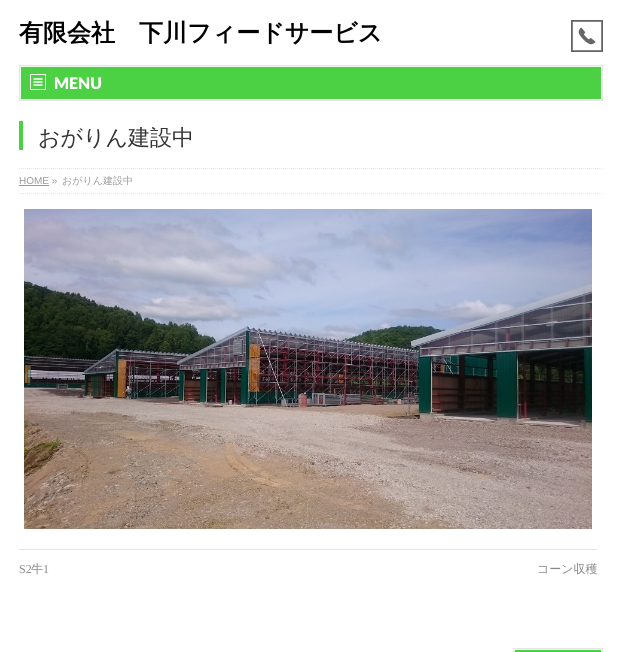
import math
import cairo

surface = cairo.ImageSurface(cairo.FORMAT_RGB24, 622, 652)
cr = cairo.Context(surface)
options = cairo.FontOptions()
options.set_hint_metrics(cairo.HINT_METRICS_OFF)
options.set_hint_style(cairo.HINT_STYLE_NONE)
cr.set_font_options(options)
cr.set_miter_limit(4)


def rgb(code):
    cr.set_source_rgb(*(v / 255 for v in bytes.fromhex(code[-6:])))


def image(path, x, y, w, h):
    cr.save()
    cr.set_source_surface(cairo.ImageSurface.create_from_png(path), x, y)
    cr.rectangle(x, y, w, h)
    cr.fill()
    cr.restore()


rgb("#ffffff")
cr.paint()
image("img/1.png", 571, 20, 32, 32)
rgb("#4cd145")
cr.rectangle(20.5, 66.5, 581, 33)
cr.fill_preserve()
rgb("#edfaec")
cr.set_line_width(1)
cr.stroke()
cr.rectangle(19.5, 65.5, 583, 35)
rgb("#e5e5e5")
cr.stroke()
image("img/2.png", 30, 74, 16, 16)
rgb("#4cd145")
cr.rectangle(19, 121, 4, 29)
cr.fill()
cr.new_path()
cr.move_to(19, 168.5)
cr.line_to(603, 168.5)
rgb("#e5e5e5")
cr.set_dash([1, 1])
cr.stroke()
cr.new_path()
cr.move_to(19, 193.5)
cr.line_to(603, 193.5)
cr.stroke()
rgb("#999999")
cr.rectangle(19, 185, 30, 1)
cr.fill()
image("img/3.png", 24, 209, 568, 320)
rgb("#e5e5e5")
cr.rectangle(19, 549, 578, 1)
cr.fill()
rgb("#4cd145")
cr.rectangle(513, 650, 90, 2)
cr.fill()
cr.rectangle(514.5, 649.5, 87, 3)
rgb("#edfaec")
cr.set_dash([])
cr.stroke()
cr.rectangle(513.5, 648.5, 89, 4)
rgb("#e5e5e5")
cr.stroke()
cr.select_font_face("WenQuanYi Zen Hei", cairo.FONT_SLANT_NORMAL, cairo.FONT_WEIGHT_BOLD)
cr.set_font_size(24)
rgb("#000000")
cr.move_to(19, 41)
cr.show_text("有限会社　下川フィードサービス")
cr.select_font_face("Lato Black")
cr.set_font_size(16)
rgb("#ffffff")
cr.move_to(54, 89)
cr.show_text("MENU")
cr.select_font_face("WenQuanYi Zen Hei Medium")
cr.set_font_size(22)
rgb("#333333")
cr.move_to(38, 145)
cr.show_text("おがりん建設中")
cr.select_font_face("Liberation Sans")
cr.set_font_size(10)
rgb("#999999")
cr.move_to(19, 184)
cr.show_text("HOME »")
cr.select_font_face("WenQuanYi Zen Hei Medium")
cr.move_to(62, 184)
cr.show_text("おがりん建設中")
cr.select_font_face("Liberation Serif")
cr.set_font_size(12)
rgb("#888888")
cr.move_to(19, 573)
cr.show_text("S2")
cr.select_font_face("WenQuanYi Zen Hei Medium")
cr.move_to(31, 573)
cr.show_text("牛")
cr.select_font_face("Liberation Serif")
cr.move_to(43, 573)
cr.show_text("1")
cr.select_font_face("WenQuanYi Zen Hei Medium")
cr.move_to(537, 573)
cr.show_text("コーン収穫")
surface.write_to_png("page.png")
